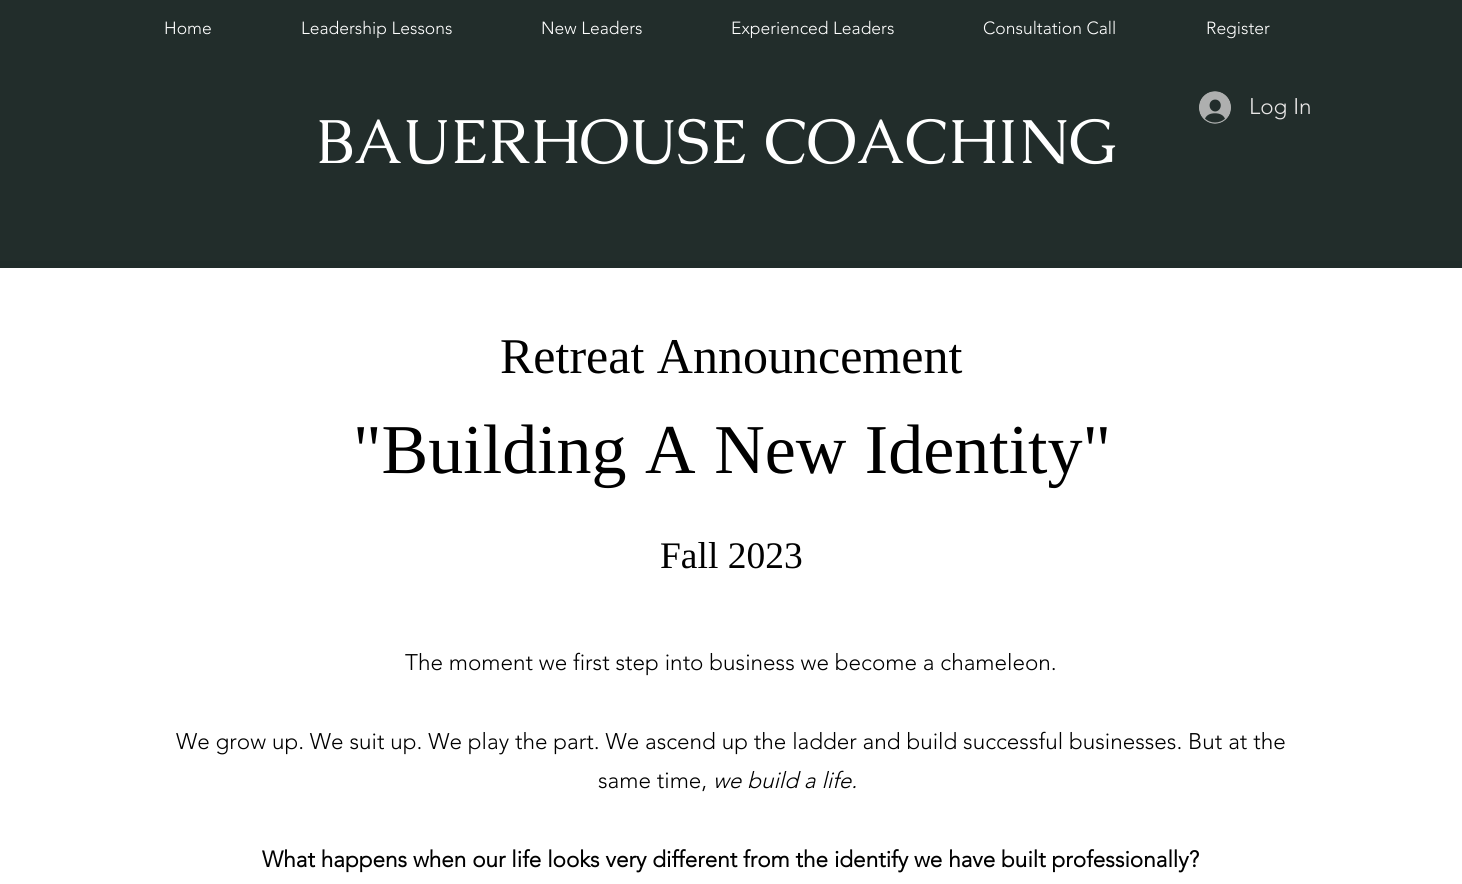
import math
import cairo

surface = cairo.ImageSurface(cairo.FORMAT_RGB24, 1462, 884)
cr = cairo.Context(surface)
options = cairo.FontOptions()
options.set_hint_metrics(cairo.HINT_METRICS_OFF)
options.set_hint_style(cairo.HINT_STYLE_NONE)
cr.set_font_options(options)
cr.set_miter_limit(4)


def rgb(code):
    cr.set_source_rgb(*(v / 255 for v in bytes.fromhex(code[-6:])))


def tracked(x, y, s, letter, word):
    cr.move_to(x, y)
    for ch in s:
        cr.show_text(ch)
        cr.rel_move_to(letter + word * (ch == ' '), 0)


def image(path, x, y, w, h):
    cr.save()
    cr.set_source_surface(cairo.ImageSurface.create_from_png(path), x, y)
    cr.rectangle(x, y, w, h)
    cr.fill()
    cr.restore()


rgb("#ffffff")
cr.paint()
rgb("#222d2b")
cr.rectangle(0, 0, 1462, 261)
cr.fill()
image("img/1.png", 1199, 91, 32, 33)
rgb("#202c2a")
cr.rectangle(0, 261, 1462, 7)
cr.fill()
cr.select_font_face("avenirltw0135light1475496 Light")
cr.set_font_size(17.5)
rgb("#ffffff")
for x, y, s in [
    (164, 34, "Home"),
    (301, 34, "Leadership Lessons"),
    (541, 34, "New Leaders"),
    (731, 34, "Experienced Leaders"),
    (983, 34, "Consultation Call"),
    (1206, 34, "Register"),
]:
    cr.move_to(x, y)
    cr.show_text(s)
cr.set_font_size(22.5)
rgb("#e8e6e6")
cr.move_to(1249, 114)
cr.show_text("Log In")
cr.select_font_face("Caudex")
cr.set_font_size(62.5)
rgb("#ffffff")
cr.move_to(316, 163)
cr.show_text("BAUERHOUSE COACHING")
cr.select_font_face("Liberation Serif")
cr.set_font_size(50)
rgb("#000000")
cr.move_to(500, 373)
cr.show_text("Retreat Announcement")
cr.set_font_size(70)
tracked(353, 473, "\"Building A New Identity\"", 0, 1)
cr.set_font_size(37.5)
cr.move_to(660, 568)
cr.show_text("Fall 2023")
cr.select_font_face("avenirltw0135light1475496 Light")
cr.set_font_size(22.5)
for x, y, s in [
    (405, 670, "The moment we first step into business we become a chameleon."),
    (176, 749, "We grow up. We suit up. We play the part. We ascend up the ladder and build successful businesses. But at the"),
    (598, 788, "same time,"),
]:
    cr.move_to(x, y)
    cr.show_text(s)
cr.select_font_face("avenirltw0135light1475496 Light", cairo.FONT_SLANT_ITALIC)
cr.move_to(713, 788)
cr.show_text("we build a life.")
cr.select_font_face("avenirltw0135light1475496", cairo.FONT_SLANT_NORMAL, cairo.FONT_WEIGHT_BOLD)
cr.move_to(262, 867)
cr.show_text("What happens when our life looks very different from the identify we have built professionally?")
surface.write_to_png("page.png")
